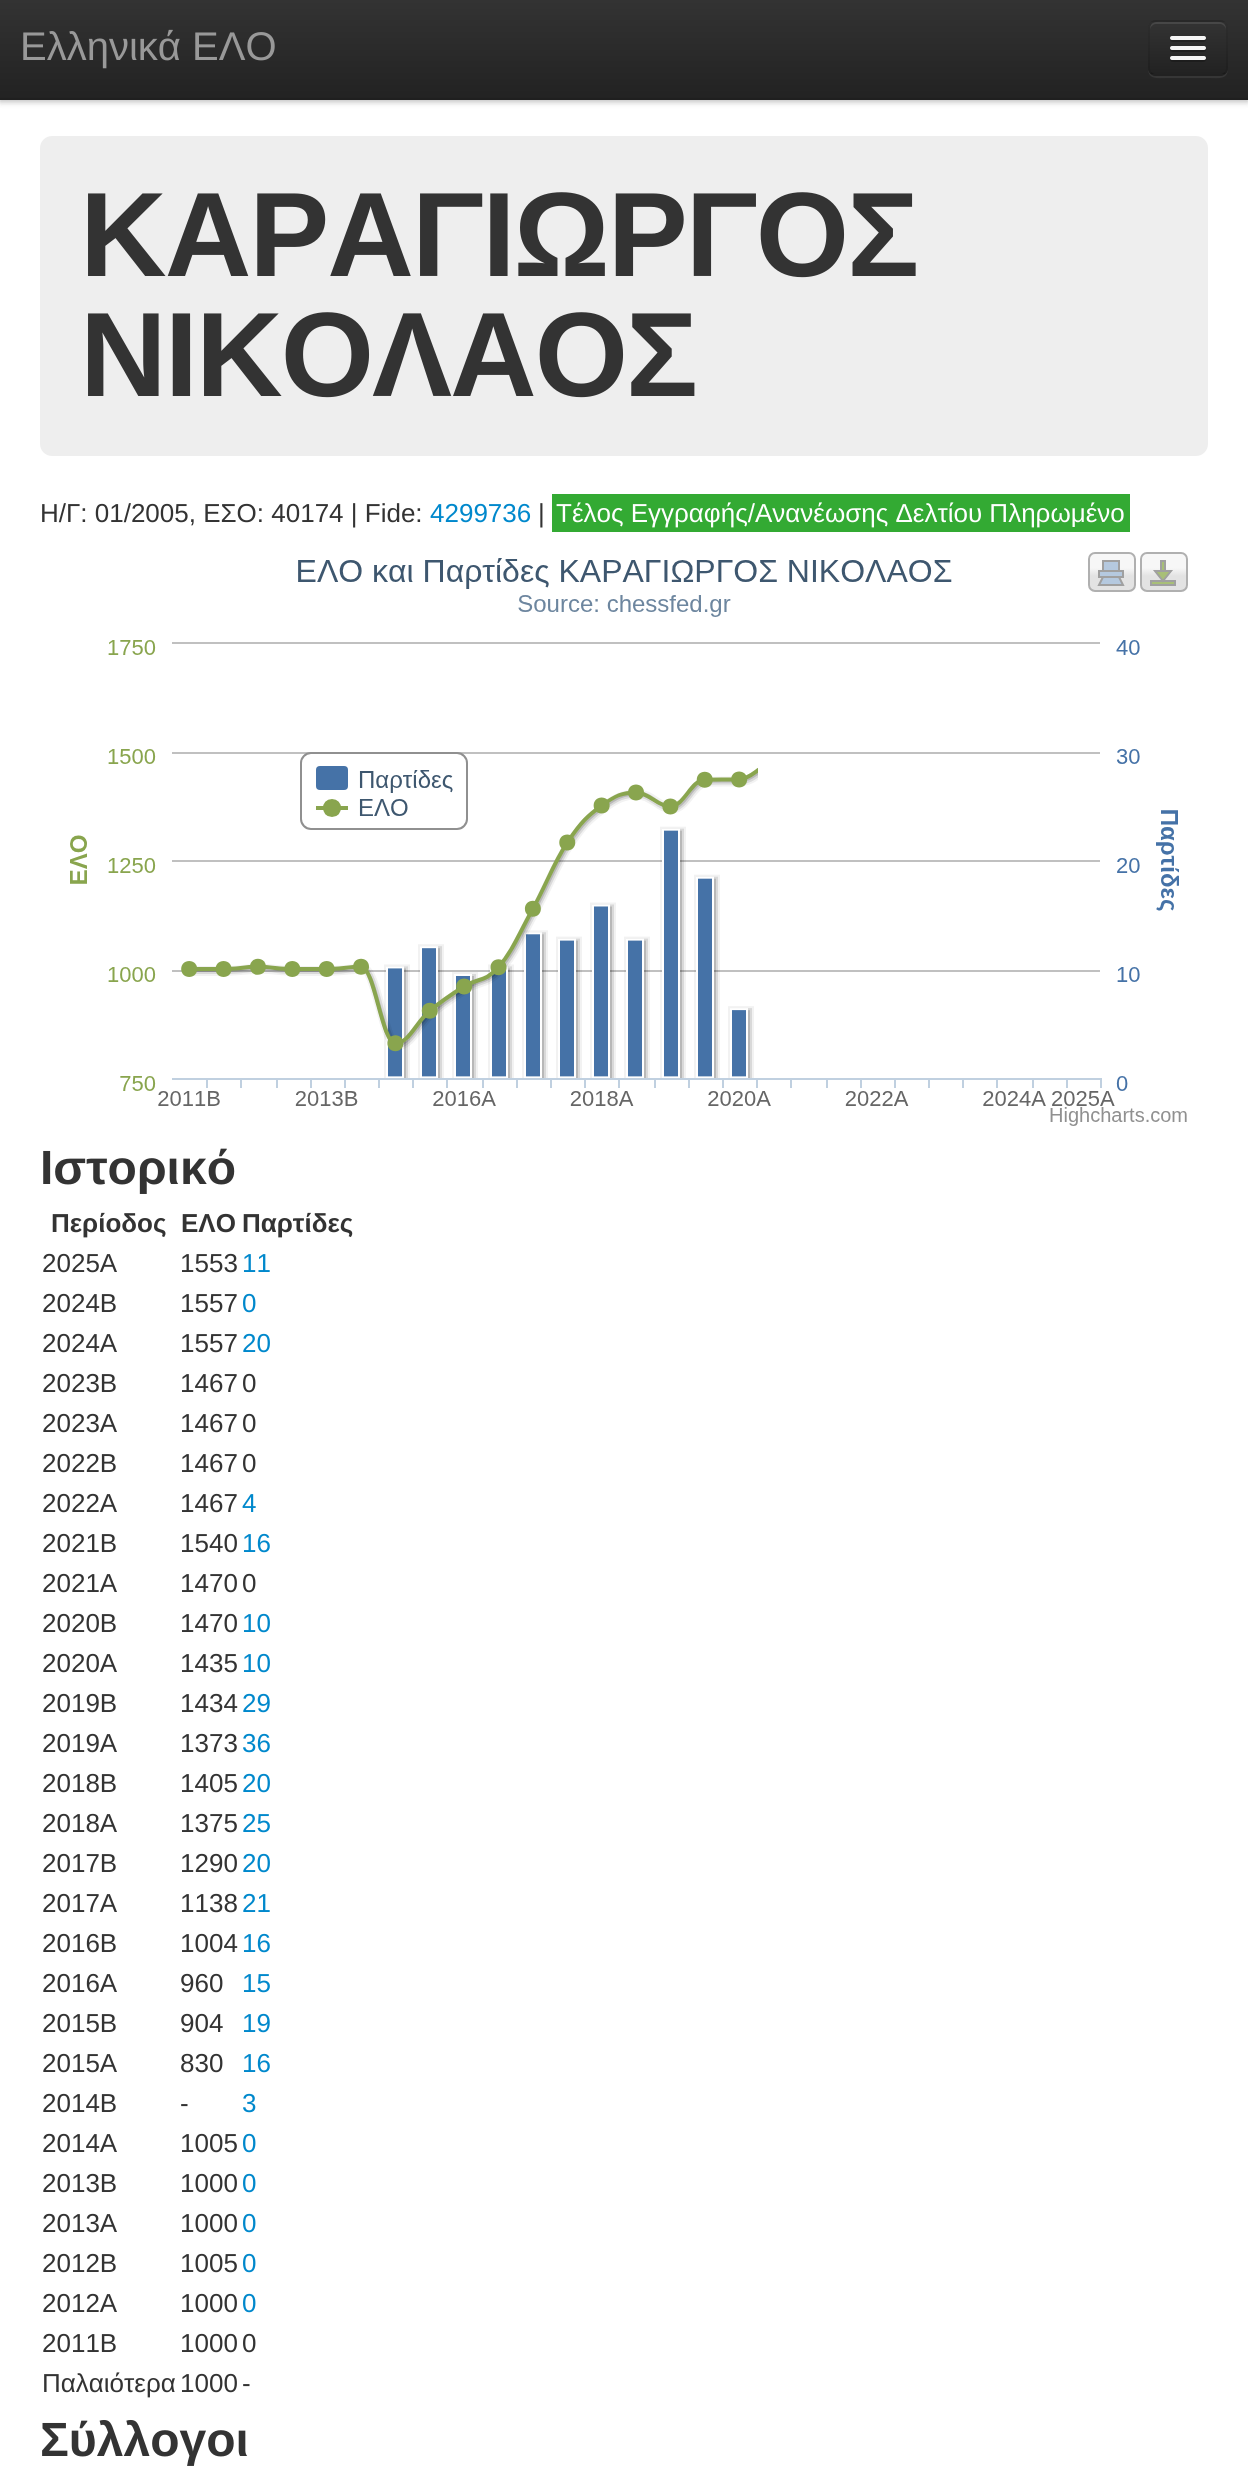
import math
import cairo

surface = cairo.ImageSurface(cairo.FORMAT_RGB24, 1248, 2472)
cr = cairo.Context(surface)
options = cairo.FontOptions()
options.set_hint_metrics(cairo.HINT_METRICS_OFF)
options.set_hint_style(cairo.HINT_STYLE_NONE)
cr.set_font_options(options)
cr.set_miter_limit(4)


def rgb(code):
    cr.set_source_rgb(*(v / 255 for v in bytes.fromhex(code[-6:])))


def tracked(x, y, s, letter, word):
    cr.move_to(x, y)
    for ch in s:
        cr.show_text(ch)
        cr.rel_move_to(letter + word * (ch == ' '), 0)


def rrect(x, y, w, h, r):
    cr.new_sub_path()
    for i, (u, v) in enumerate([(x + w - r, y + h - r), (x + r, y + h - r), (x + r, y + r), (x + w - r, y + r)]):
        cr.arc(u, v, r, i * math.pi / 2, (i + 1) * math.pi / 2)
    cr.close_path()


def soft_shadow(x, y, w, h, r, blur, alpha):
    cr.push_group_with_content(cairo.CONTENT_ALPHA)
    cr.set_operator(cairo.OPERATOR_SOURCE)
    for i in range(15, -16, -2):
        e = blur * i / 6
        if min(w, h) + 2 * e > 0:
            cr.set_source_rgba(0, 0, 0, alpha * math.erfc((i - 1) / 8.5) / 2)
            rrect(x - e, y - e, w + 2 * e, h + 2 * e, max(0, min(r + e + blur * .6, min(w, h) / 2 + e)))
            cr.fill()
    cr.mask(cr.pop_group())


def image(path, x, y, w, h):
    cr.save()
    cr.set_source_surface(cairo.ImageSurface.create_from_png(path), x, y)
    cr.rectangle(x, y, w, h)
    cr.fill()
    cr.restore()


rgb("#ffffff")
cr.paint()
rgb("#000000")
soft_shadow(0, 2, 1248, 100, 0, 3, 0.25)
gradient = cairo.LinearGradient(624, 0, 624, 100)
gradient.add_color_stop_rgba(0, 0.2, 0.2, 0.2, 1)
gradient.add_color_stop_rgba(1, 0.133, 0.133, 0.133, 1)
cr.set_source(gradient)
cr.rectangle(0, 0, 1248, 98)
cr.fill()
rgb("#1f1f1f")
cr.rectangle(0, 98, 1248, 2)
cr.fill()
rgb("#363636")
cr.new_path()
cr.move_to(1148, 68)
cr.curve_to(1148, 80, 1157, 78, 1167, 78)
cr.line_to(1209, 78)
cr.curve_to(1219, 78, 1228, 80, 1228, 68)
cr.curve_to(1228, 72, 1224, 76, 1220, 76)
cr.line_to(1156, 76)
cr.curve_to(1152, 76, 1148, 72, 1148, 68)
cr.close_path()
cr.fill()
rgb("#2c2c2c")
rrect(1148, 20, 80, 56, 8)
cr.fill()
cr.save()
rrect(1148, 20, 80, 56, 8)
cr.clip()
gradient = cairo.LinearGradient(1188, 22, 1188, 74)
gradient.add_color_stop_rgba(0, 0.2, 0.2, 0.2, 1)
gradient.add_color_stop_rgba(1, 0.133, 0.133, 0.133, 1)
cr.set_source(gradient)
cr.rectangle(1148, 22, 80, 52)
cr.fill()
cr.restore()
rgb("#474747")
cr.new_path()
cr.move_to(1156, 24)
cr.line_to(1220, 24)
cr.curve_to(1223, 24, 1226, 27, 1226, 30)
cr.curve_to(1226, 20, 1218, 22, 1209, 22)
cr.line_to(1167, 22)
cr.curve_to(1158, 22, 1150, 20, 1150, 30)
cr.curve_to(1150, 27, 1153, 24, 1156, 24)
cr.close_path()
cr.fill()
cr.new_path()
cr.move_to(1225, 73)
cr.curve_to(1223.5, 74.5, 1222, 75, 1220, 75)
cr.line_to(1156, 75)
cr.curve_to(1154, 75, 1152.5, 74.5, 1151, 73)
cr.set_source_rgba(0, 0, 0, 0.25)
cr.stroke()
cr.new_path()
cr.move_to(1151, 73)
cr.curve_to(1149.5, 71.5, 1149, 70, 1149, 68)
cr.line_to(1149, 28)
cr.curve_to(1149, 26, 1149.5, 24.5, 1151, 23)
cr.curve_to(1152.5, 21.5, 1154, 21, 1156, 21)
cr.line_to(1220, 21)
cr.curve_to(1222, 21, 1223.5, 21.5, 1225, 23)
cr.curve_to(1226.5, 24.5, 1227, 26, 1227, 28)
cr.line_to(1227, 68)
cr.curve_to(1227, 70, 1226.5, 71.5, 1225, 73)
cr.set_source_rgba(0, 0, 0, 0.1)
cr.stroke()
rgb("#222222")
cr.new_path()
cr.move_to(1170.5, 39)
cr.curve_to(1168, 43, 1177, 42, 1177.5, 42)
cr.line_to(1198.5, 42)
cr.curve_to(1199, 42, 1208, 43, 1205.5, 39)
cr.curve_to(1205.5, 39.5, 1204.5, 40, 1204, 40)
cr.line_to(1172, 40)
cr.curve_to(1171.5, 40, 1170.5, 39.5, 1170.5, 39)
cr.close_path()
cr.fill()
rgb("#f5f5f5")
rrect(1170, 36, 36, 4, 2)
cr.fill()
rgb("#1f1f1f")
cr.new_path()
cr.move_to(1170.5, 49)
cr.curve_to(1168, 53, 1177, 52, 1177.5, 52)
cr.line_to(1198.5, 52)
cr.curve_to(1199, 52, 1208, 53, 1205.5, 49)
cr.curve_to(1205.5, 49.5, 1204.5, 50, 1204, 50)
cr.line_to(1172, 50)
cr.curve_to(1171.5, 50, 1170.5, 49.5, 1170.5, 49)
cr.close_path()
cr.fill()
rgb("#f5f5f5")
rrect(1170, 46, 36, 4, 2)
cr.fill()
rgb("#1d1d1d")
cr.new_path()
cr.move_to(1170.5, 59)
cr.curve_to(1168, 63, 1177, 62, 1177.5, 62)
cr.line_to(1198.5, 62)
cr.curve_to(1199, 62, 1208, 63, 1205.5, 59)
cr.curve_to(1205.5, 59.5, 1204.5, 60, 1204, 60)
cr.line_to(1172, 60)
cr.curve_to(1171.5, 60, 1170.5, 59.5, 1170.5, 59)
cr.close_path()
cr.fill()
rgb("#f5f5f5")
rrect(1170, 56, 36, 4, 2)
cr.fill()
rgb("#eeeeee")
rrect(40, 136, 1168, 320, 12)
cr.fill()
rgb("#33aa33")
cr.rectangle(552, 494, 578, 38)
cr.fill()
image("img/1.png", 70, 552, 1118, 574)
cr.select_font_face("Liberation Sans")
cr.set_font_size(40)
rgb("#999999")
cr.move_to(20, 60)
cr.show_text("Ελληνικά ΕΛΟ")
cr.select_font_face("Liberation Sans", cairo.FONT_SLANT_NORMAL, cairo.FONT_WEIGHT_BOLD)
cr.set_font_size(120)
rgb("#333333")
tracked(80, 276, "ΚΑΡΑΓΙΩΡΓΟΣ", -2, 0)
tracked(80, 396, "ΝΙΚΟΛΑΟΣ", -2, 0)
cr.select_font_face("Liberation Sans")
cr.set_font_size(26)
cr.move_to(40, 522)
cr.show_text("Η/Γ: 01/2005, ΕΣΟ: 40174 | Fide:")
rgb("#0088cc")
cr.move_to(430, 522)
cr.show_text("4299736")
rgb("#333333")
cr.move_to(538, 522)
cr.show_text("|")
rgb("#ffffff")
cr.move_to(556, 522)
cr.show_text("Τέλος Εγγραφής/Ανανέωσης Δελτίου Πληρωμένο")
cr.select_font_face("Liberation Sans", cairo.FONT_SLANT_NORMAL, cairo.FONT_WEIGHT_BOLD)
cr.set_font_size(48)
rgb("#333333")
cr.move_to(40, 1184)
cr.show_text("Ιστορικό")
cr.set_font_size(26)
for x, y, s in [
    (51, 1232, "Περίοδος"),
    (181, 1232, "ΕΛΟ"),
    (242, 1232, "Παρτίδες"),
]:
    cr.move_to(x, y)
    cr.show_text(s)
cr.select_font_face("Liberation Sans")
cr.move_to(42, 1272)
cr.show_text("2025A")
cr.move_to(180, 1272)
cr.show_text("1553")
rgb("#0088cc")
cr.move_to(242, 1272)
cr.show_text("11")
rgb("#333333")
cr.move_to(42, 1312)
cr.show_text("2024B")
cr.move_to(180, 1312)
cr.show_text("1557")
rgb("#0088cc")
cr.move_to(242, 1312)
cr.show_text("0")
rgb("#333333")
cr.move_to(42, 1352)
cr.show_text("2024A")
cr.move_to(180, 1352)
cr.show_text("1557")
rgb("#0088cc")
cr.move_to(242, 1352)
cr.show_text("20")
rgb("#333333")
for x, y, s in [
    (42, 1392, "2023B"),
    (180, 1392, "1467"),
    (242, 1392, "0"),
    (42, 1432, "2023Α"),
    (180, 1432, "1467"),
    (242, 1432, "0"),
    (42, 1472, "2022B"),
    (180, 1472, "1467"),
    (242, 1472, "0"),
    (42, 1512, "2022A"),
    (180, 1512, "1467"),
]:
    cr.move_to(x, y)
    cr.show_text(s)
rgb("#0088cc")
cr.move_to(242, 1512)
cr.show_text("4")
rgb("#333333")
cr.move_to(42, 1552)
cr.show_text("2021B")
cr.move_to(180, 1552)
cr.show_text("1540")
rgb("#0088cc")
cr.move_to(242, 1552)
cr.show_text("16")
rgb("#333333")
for x, y, s in [
    (42, 1592, "2021A"),
    (180, 1592, "1470"),
    (242, 1592, "0"),
    (42, 1632, "2020B"),
    (180, 1632, "1470"),
]:
    cr.move_to(x, y)
    cr.show_text(s)
rgb("#0088cc")
cr.move_to(242, 1632)
cr.show_text("10")
rgb("#333333")
cr.move_to(42, 1672)
cr.show_text("2020A")
cr.move_to(180, 1672)
cr.show_text("1435")
rgb("#0088cc")
cr.move_to(242, 1672)
cr.show_text("10")
rgb("#333333")
cr.move_to(42, 1712)
cr.show_text("2019B")
cr.move_to(180, 1712)
cr.show_text("1434")
rgb("#0088cc")
cr.move_to(242, 1712)
cr.show_text("29")
rgb("#333333")
cr.move_to(42, 1752)
cr.show_text("2019A")
cr.move_to(180, 1752)
cr.show_text("1373")
rgb("#0088cc")
cr.move_to(242, 1752)
cr.show_text("36")
rgb("#333333")
cr.move_to(42, 1792)
cr.show_text("2018B")
cr.move_to(180, 1792)
cr.show_text("1405")
rgb("#0088cc")
cr.move_to(242, 1792)
cr.show_text("20")
rgb("#333333")
cr.move_to(42, 1832)
cr.show_text("2018A")
cr.move_to(180, 1832)
cr.show_text("1375")
rgb("#0088cc")
cr.move_to(242, 1832)
cr.show_text("25")
rgb("#333333")
cr.move_to(42, 1872)
cr.show_text("2017B")
cr.move_to(180, 1872)
cr.show_text("1290")
rgb("#0088cc")
cr.move_to(242, 1872)
cr.show_text("20")
rgb("#333333")
cr.move_to(42, 1912)
cr.show_text("2017A")
cr.move_to(180, 1912)
cr.show_text("1138")
rgb("#0088cc")
cr.move_to(242, 1912)
cr.show_text("21")
rgb("#333333")
cr.move_to(42, 1952)
cr.show_text("2016B")
cr.move_to(180, 1952)
cr.show_text("1004")
rgb("#0088cc")
cr.move_to(242, 1952)
cr.show_text("16")
rgb("#333333")
cr.move_to(42, 1992)
cr.show_text("2016A")
cr.move_to(180, 1992)
cr.show_text("960")
rgb("#0088cc")
cr.move_to(242, 1992)
cr.show_text("15")
rgb("#333333")
cr.move_to(42, 2032)
cr.show_text("2015B")
cr.move_to(180, 2032)
cr.show_text("904")
rgb("#0088cc")
cr.move_to(242, 2032)
cr.show_text("19")
rgb("#333333")
cr.move_to(42, 2072)
cr.show_text("2015A")
cr.move_to(180, 2072)
cr.show_text("830")
rgb("#0088cc")
cr.move_to(242, 2072)
cr.show_text("16")
rgb("#333333")
cr.move_to(42, 2112)
cr.show_text("2014B")
cr.move_to(180, 2112)
cr.show_text("-")
rgb("#0088cc")
cr.move_to(242, 2112)
cr.show_text("3")
rgb("#333333")
cr.move_to(42, 2152)
cr.show_text("2014A")
cr.move_to(180, 2152)
cr.show_text("1005")
rgb("#0088cc")
cr.move_to(242, 2152)
cr.show_text("0")
rgb("#333333")
cr.move_to(42, 2192)
cr.show_text("2013B")
cr.move_to(180, 2192)
cr.show_text("1000")
rgb("#0088cc")
cr.move_to(242, 2192)
cr.show_text("0")
rgb("#333333")
cr.move_to(42, 2232)
cr.show_text("2013A")
cr.move_to(180, 2232)
cr.show_text("1000")
rgb("#0088cc")
cr.move_to(242, 2232)
cr.show_text("0")
rgb("#333333")
cr.move_to(42, 2272)
cr.show_text("2012B")
cr.move_to(180, 2272)
cr.show_text("1005")
rgb("#0088cc")
cr.move_to(242, 2272)
cr.show_text("0")
rgb("#333333")
cr.move_to(42, 2312)
cr.show_text("2012A")
cr.move_to(180, 2312)
cr.show_text("1000")
rgb("#0088cc")
cr.move_to(242, 2312)
cr.show_text("0")
rgb("#333333")
for x, y, s in [
    (42, 2352, "2011B"),
    (180, 2352, "1000"),
    (242, 2352, "0"),
    (42, 2392, "Παλαιότερα"),
    (180, 2392, "1000"),
    (242, 2392, "-"),
]:
    cr.move_to(x, y)
    cr.show_text(s)
cr.select_font_face("Liberation Sans", cairo.FONT_SLANT_NORMAL, cairo.FONT_WEIGHT_BOLD)
cr.set_font_size(48)
cr.move_to(40, 2456)
cr.show_text("Σύλλογοι")
surface.write_to_png("page.png")
